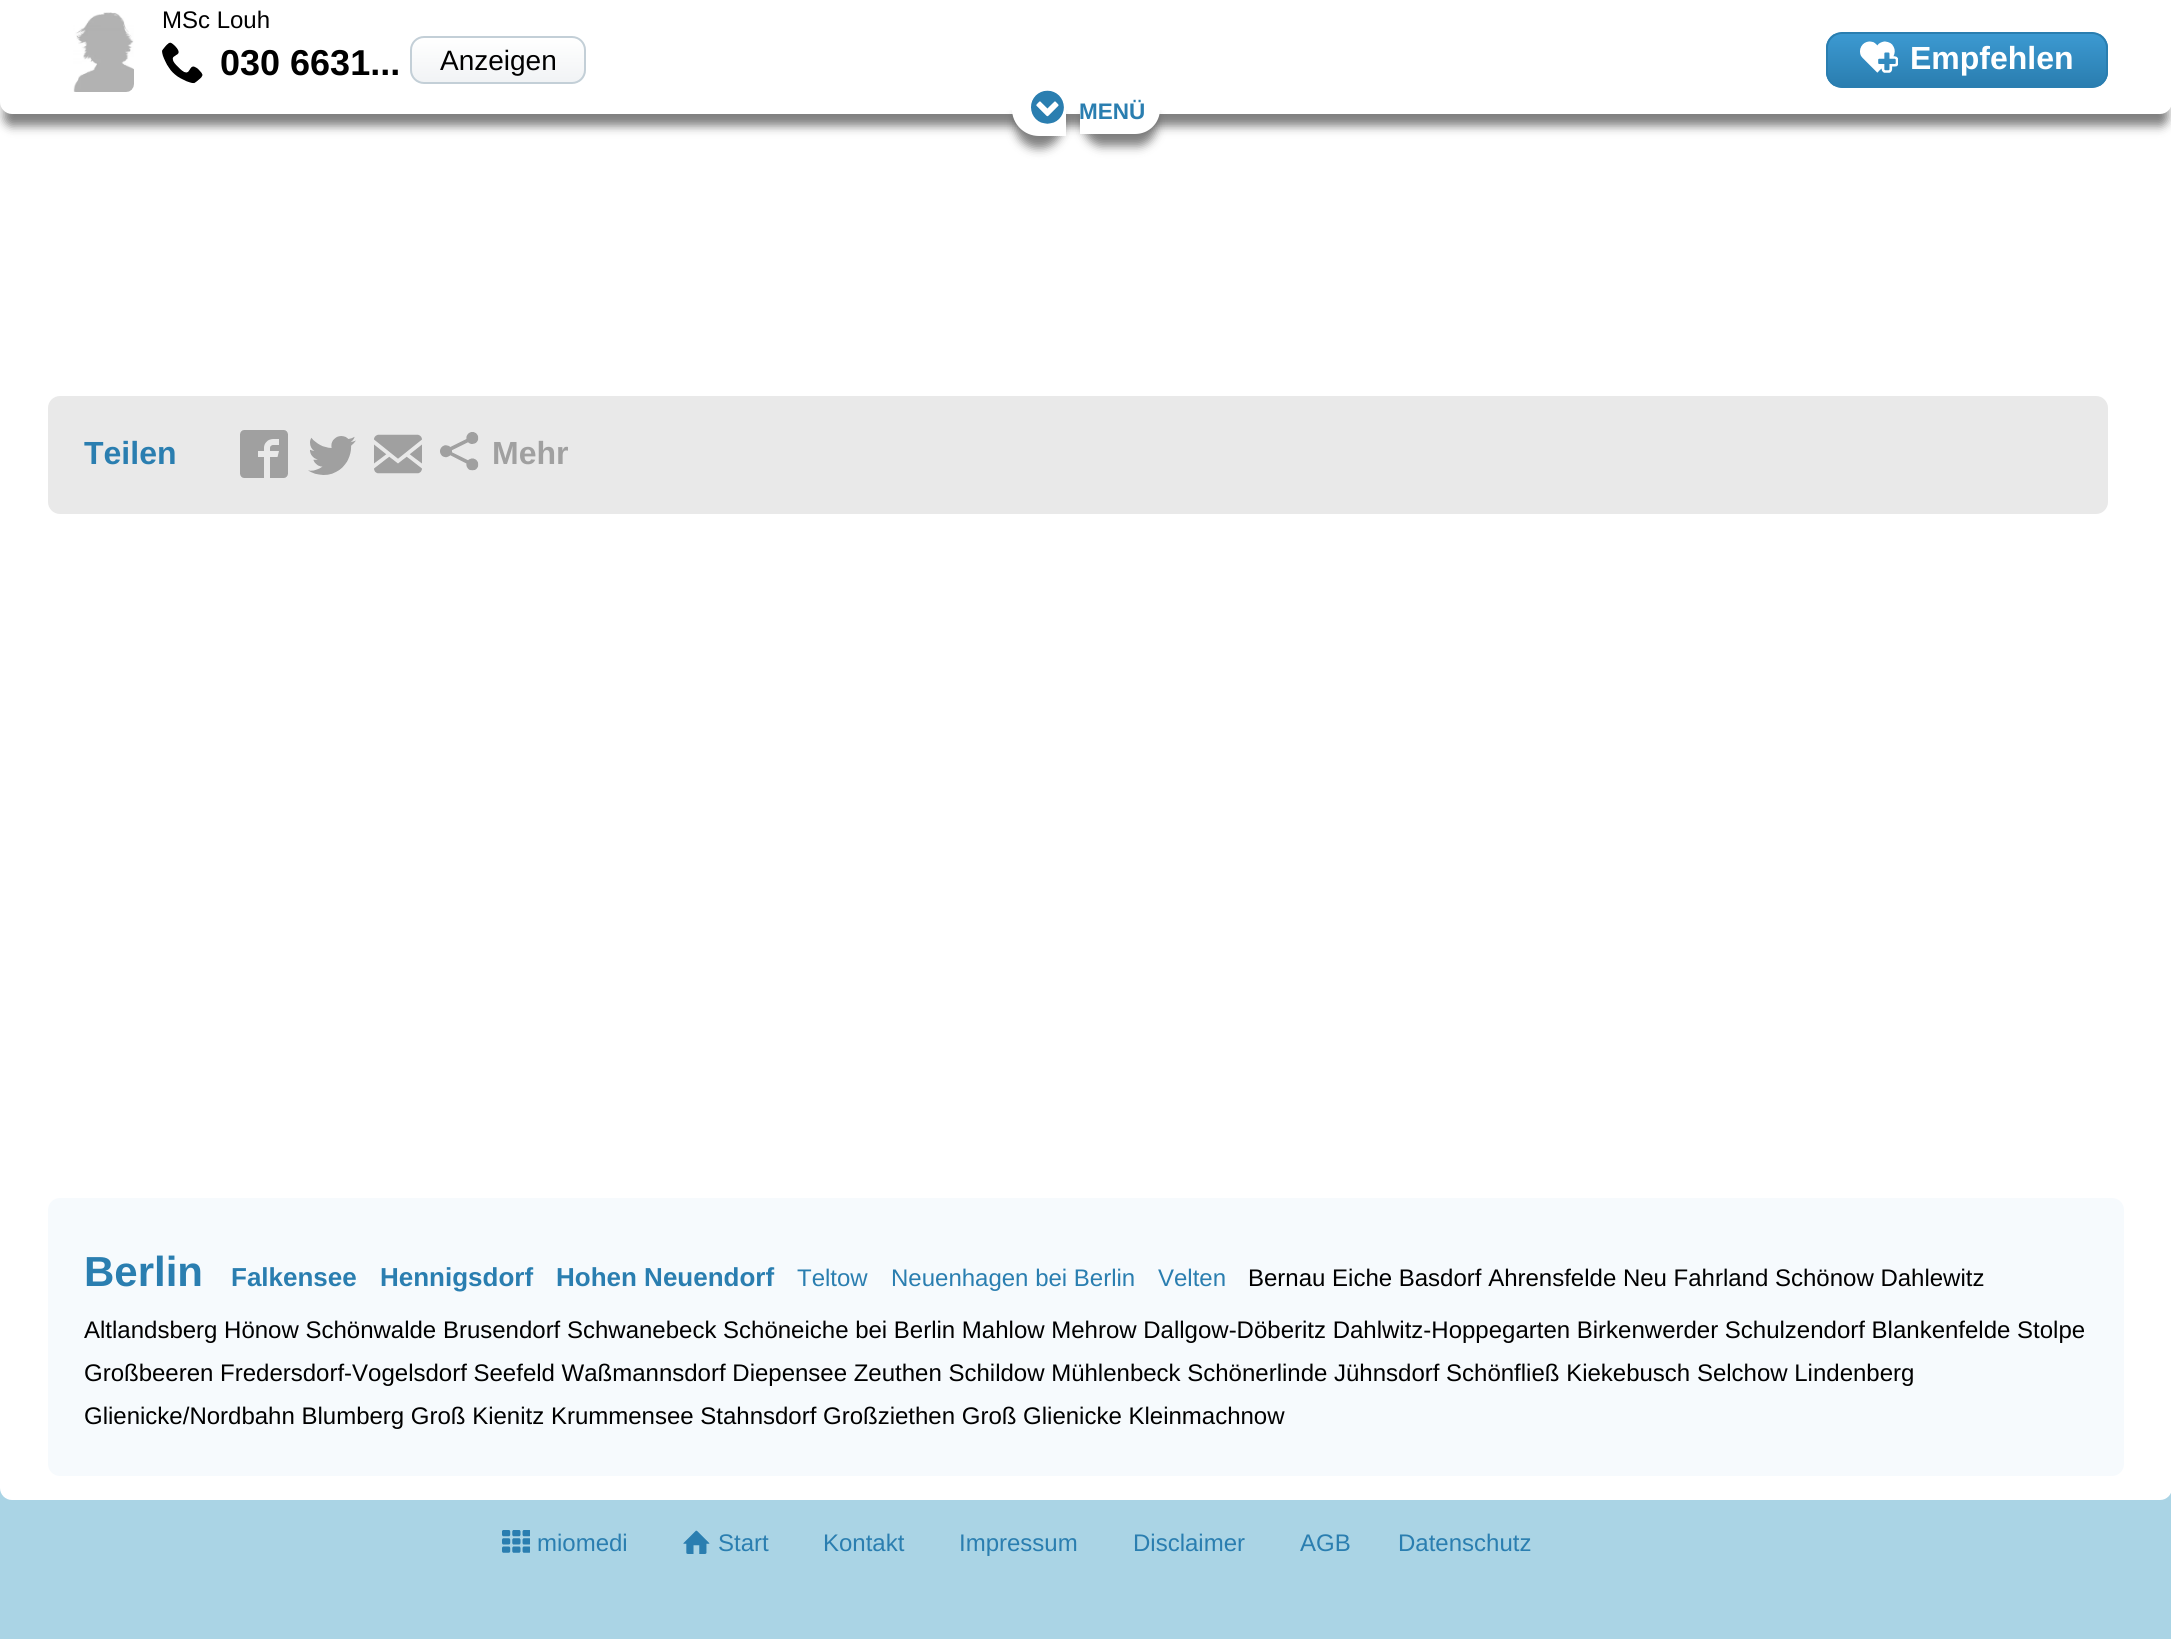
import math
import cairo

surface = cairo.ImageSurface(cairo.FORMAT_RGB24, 2171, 1639)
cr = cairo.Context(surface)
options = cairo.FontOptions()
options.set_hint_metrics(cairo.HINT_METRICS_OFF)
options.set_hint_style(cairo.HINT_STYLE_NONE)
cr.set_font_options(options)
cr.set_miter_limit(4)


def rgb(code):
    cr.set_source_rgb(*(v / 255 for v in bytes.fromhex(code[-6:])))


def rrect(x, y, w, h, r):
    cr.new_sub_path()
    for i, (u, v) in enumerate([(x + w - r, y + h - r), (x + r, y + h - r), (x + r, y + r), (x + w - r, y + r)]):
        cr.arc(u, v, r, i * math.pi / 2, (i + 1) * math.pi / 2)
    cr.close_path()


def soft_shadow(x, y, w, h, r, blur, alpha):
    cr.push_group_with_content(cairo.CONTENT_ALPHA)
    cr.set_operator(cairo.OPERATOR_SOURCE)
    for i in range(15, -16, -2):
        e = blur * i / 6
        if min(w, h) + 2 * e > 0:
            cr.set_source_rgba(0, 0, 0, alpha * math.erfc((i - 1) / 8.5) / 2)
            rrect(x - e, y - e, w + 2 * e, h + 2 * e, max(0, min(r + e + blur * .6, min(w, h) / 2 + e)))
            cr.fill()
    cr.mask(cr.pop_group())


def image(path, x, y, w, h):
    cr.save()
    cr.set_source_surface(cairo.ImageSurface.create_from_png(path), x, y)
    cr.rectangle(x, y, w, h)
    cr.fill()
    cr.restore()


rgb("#aad4e5")
cr.paint()
rgb("#ffffff")
rrect(0, -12, 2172, 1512, 12)
cr.fill()
rgb("#000000")
soft_shadow(4, 20, 2164, 106, 8, 5, 0.5)
rgb("#ffffff")
cr.new_path()
cr.move_to(0, 0)
cr.line_to(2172, 0)
cr.line_to(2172, 102)
cr.curve_to(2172, 108.5, 2166.5, 114, 2160, 114)
cr.line_to(12, 114)
cr.curve_to(5.5, 114, 0, 108.5, 0, 102)
cr.close_path()
cr.fill()
rgb("#000000")
soft_shadow(1016, 102, 46, 46, 23, 5, 0.5)
rgb("#ffffff")
cr.new_path()
cr.move_to(1039, 82)
cr.line_to(1066, 82)
cr.line_to(1066, 136)
cr.line_to(1039, 136)
cr.curve_to(1024, 136, 1012, 124, 1012, 109)
cr.curve_to(1012, 94, 1024, 82, 1039, 82)
cr.close_path()
cr.fill()
rgb("#000000")
soft_shadow(1084, 104, 72, 42, 21, 5, 0.5)
rgb("#ffffff")
rrect(0, 0, 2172, 110, 12)
cr.fill()
image("img/1.png", 73, 12, 61, 80)
image("img/2.png", 162, 42, 41, 42)
cr.save()
rrect(410, 36, 176, 48, 14)
cr.clip()
gradient = cairo.LinearGradient(412, 38, 412, 82)
gradient.add_color_stop_rgba(0, 1, 1, 1, 1)
gradient.add_color_stop_rgba(1, 0.945, 0.953, 0.961, 1)
cr.set_source(gradient)
cr.rectangle(410, 38, 176, 44)
cr.fill()
cr.restore()
rrect(411, 37, 174, 46, 13)
rgb("#c3cfd7")
cr.stroke()
cr.save()
rrect(1826, 32, 282, 56, 16)
cr.clip()
gradient = cairo.LinearGradient(1828, 34, 1828, 86)
gradient.add_color_stop_rgba(0, 0.235, 0.6, 0.82, 1)
gradient.add_color_stop_rgba(1, 0.165, 0.494, 0.69, 1)
cr.set_source(gradient)
cr.rectangle(1826, 34, 282, 52)
cr.fill()
cr.restore()
rrect(1827, 33, 280, 54, 15)
rgb("#2a7eb0")
cr.stroke()
image("img/3.png", 1860, 41, 38, 32)
rgb("#ffffff")
cr.new_path()
cr.move_to(1039, 80)
cr.line_to(1066, 80)
cr.line_to(1066, 134)
cr.line_to(1039, 134)
cr.curve_to(1024, 134, 1012, 122, 1012, 107)
cr.curve_to(1012, 92, 1024, 80, 1039, 80)
cr.close_path()
cr.fill()
cr.new_path()
cr.move_to(1080, 84)
cr.line_to(1135, 84)
cr.curve_to(1149, 84, 1160, 95, 1160, 109)
cr.curve_to(1160, 123, 1149, 134, 1135, 134)
cr.line_to(1080, 134)
cr.close_path()
cr.fill()
image("img/4.png", 1031, 90, 33, 34)
rgb("#e9e9e9")
rrect(48, 396, 2060, 118, 12)
cr.fill()
image("img/5.png", 240, 430, 48, 48)
image("img/6.png", 308, 436, 48, 39)
image("img/7.png", 374, 434, 48, 40)
image("img/8.png", 440, 432, 39, 39)
rgb("#f6fafd")
rrect(48, 1198, 2076, 278, 12)
cr.fill()
image("img/9.png", 502, 1530, 28, 23)
image("img/10.png", 683, 1530, 27, 24)
cr.select_font_face("Liberation Sans")
cr.set_font_size(24)
rgb("#000000")
cr.move_to(162, 28)
cr.show_text("MSc Louh")
cr.select_font_face("Liberation Sans", cairo.FONT_SLANT_NORMAL, cairo.FONT_WEIGHT_BOLD)
cr.set_font_size(36)
cr.move_to(220, 75)
cr.show_text("030 6631...")
cr.select_font_face("Liberation Sans")
cr.set_font_size(28)
cr.move_to(440, 70)
cr.show_text("Anzeigen")
cr.select_font_face("Liberation Sans", cairo.FONT_SLANT_NORMAL, cairo.FONT_WEIGHT_BOLD)
cr.set_font_size(32)
rgb("#ffffff")
cr.move_to(1910, 69)
cr.show_text("Empfehlen")
cr.set_font_size(22.5)
rgb("#2a7eb0")
cr.move_to(1079, 119)
cr.show_text("MENÜ")
cr.set_font_size(32)
cr.move_to(84, 464)
cr.show_text("Teilen")
rgb("#a0a0a0")
cr.move_to(492, 464)
cr.show_text("Mehr")
cr.set_font_size(42)
rgb("#2a7eb0")
cr.move_to(84, 1286)
cr.show_text("Berlin")
cr.set_font_size(26)
for x, y, s in [
    (231, 1286, "Falkensee"),
    (380, 1286, "Hennigsdorf"),
    (556, 1286, "Hohen Neuendorf"),
]:
    cr.move_to(x, y)
    cr.show_text(s)
cr.select_font_face("Liberation Sans")
cr.set_font_size(24)
for x, y, s in [
    (797, 1286, "Teltow"),
    (891, 1286, "Neuenhagen bei Berlin"),
    (1158, 1286, "Velten"),
]:
    cr.move_to(x, y)
    cr.show_text(s)
rgb("#000000")
for x, y, s in [
    (1248, 1286, "Bernau Eiche Basdorf Ahrensfelde Neu Fahrland Schönow Dahlewitz"),
    (84, 1338, "Altlandsberg Hönow Schönwalde Brusendorf Schwanebeck Schöneiche bei Berlin Mahlow Mehrow Dallgow-Döberitz Dahlwitz-Hoppegarten Birkenwerder Schulzendorf Blankenfelde Stolpe"),
    (84, 1381, "Großbeeren Fredersdorf-Vogelsdorf Seefeld Waßmannsdorf Diepensee Zeuthen Schildow Mühlenbeck Schönerlinde Jühnsdorf Schönfließ Kiekebusch Selchow Lindenberg"),
    (84, 1424, "Glienicke/Nordbahn Blumberg Groß Kienitz Krummensee Stahnsdorf Großziethen Groß Glienicke Kleinmachnow"),
]:
    cr.move_to(x, y)
    cr.show_text(s)
rgb("#2a7eb0")
for x, y, s in [
    (537, 1551, "miomedi"),
    (718, 1551, "Start"),
    (823, 1551, "Kontakt"),
    (959, 1551, "Impressum"),
    (1133, 1551, "Disclaimer"),
    (1300, 1551, "AGB"),
    (1398, 1551, "Datenschutz"),
]:
    cr.move_to(x, y)
    cr.show_text(s)
surface.write_to_png("page.png")
